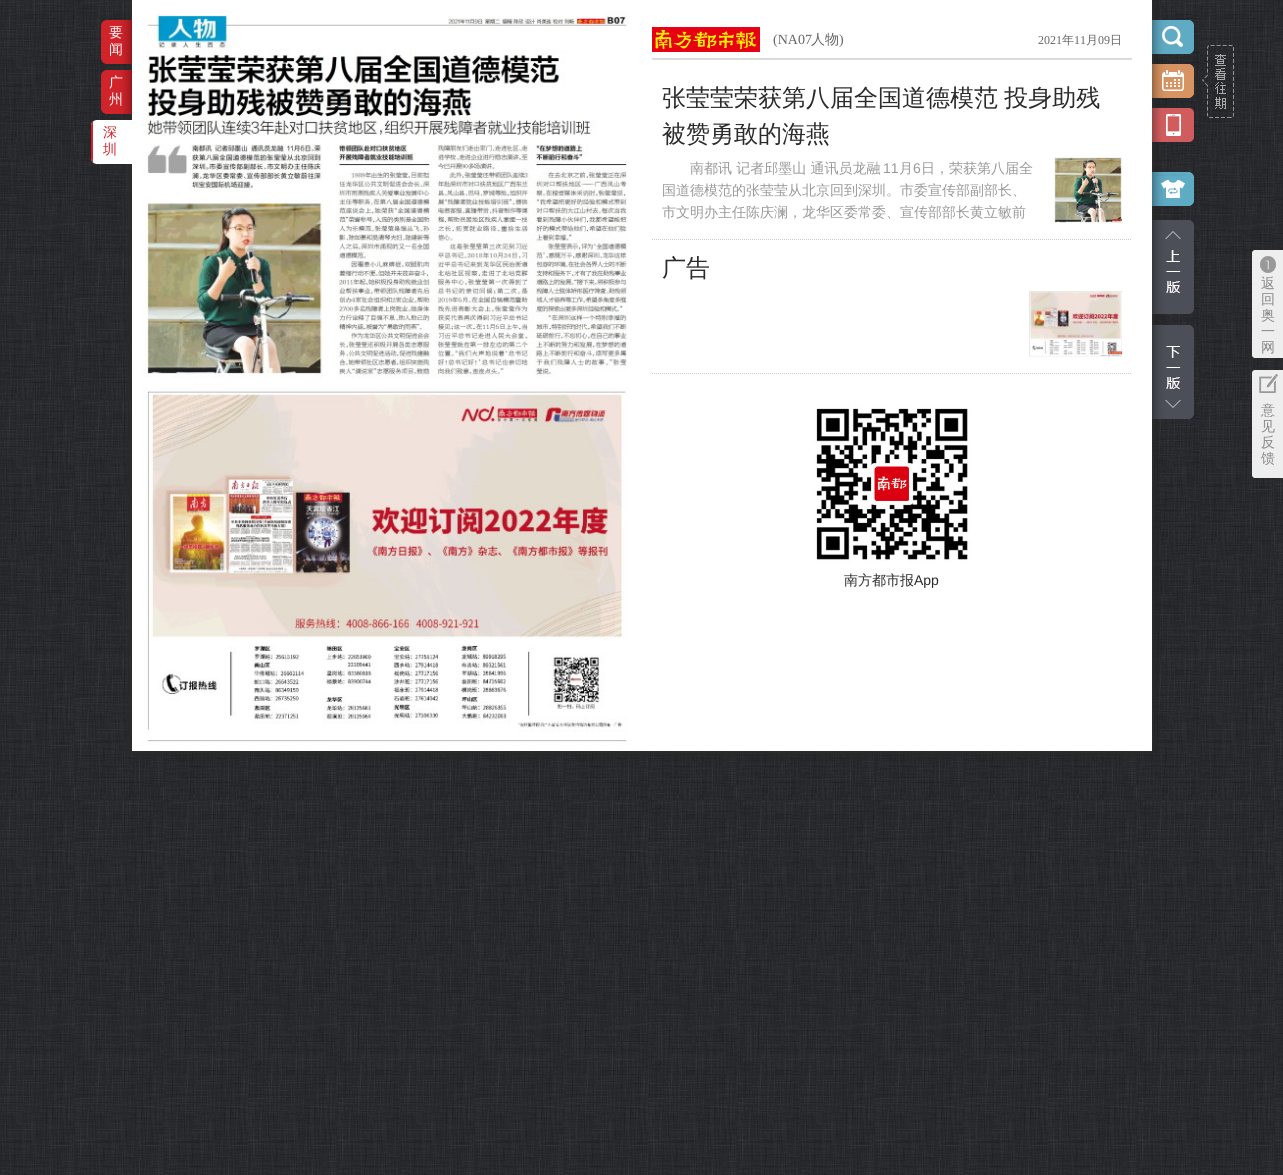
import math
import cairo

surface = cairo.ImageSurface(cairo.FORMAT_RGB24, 1283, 1175)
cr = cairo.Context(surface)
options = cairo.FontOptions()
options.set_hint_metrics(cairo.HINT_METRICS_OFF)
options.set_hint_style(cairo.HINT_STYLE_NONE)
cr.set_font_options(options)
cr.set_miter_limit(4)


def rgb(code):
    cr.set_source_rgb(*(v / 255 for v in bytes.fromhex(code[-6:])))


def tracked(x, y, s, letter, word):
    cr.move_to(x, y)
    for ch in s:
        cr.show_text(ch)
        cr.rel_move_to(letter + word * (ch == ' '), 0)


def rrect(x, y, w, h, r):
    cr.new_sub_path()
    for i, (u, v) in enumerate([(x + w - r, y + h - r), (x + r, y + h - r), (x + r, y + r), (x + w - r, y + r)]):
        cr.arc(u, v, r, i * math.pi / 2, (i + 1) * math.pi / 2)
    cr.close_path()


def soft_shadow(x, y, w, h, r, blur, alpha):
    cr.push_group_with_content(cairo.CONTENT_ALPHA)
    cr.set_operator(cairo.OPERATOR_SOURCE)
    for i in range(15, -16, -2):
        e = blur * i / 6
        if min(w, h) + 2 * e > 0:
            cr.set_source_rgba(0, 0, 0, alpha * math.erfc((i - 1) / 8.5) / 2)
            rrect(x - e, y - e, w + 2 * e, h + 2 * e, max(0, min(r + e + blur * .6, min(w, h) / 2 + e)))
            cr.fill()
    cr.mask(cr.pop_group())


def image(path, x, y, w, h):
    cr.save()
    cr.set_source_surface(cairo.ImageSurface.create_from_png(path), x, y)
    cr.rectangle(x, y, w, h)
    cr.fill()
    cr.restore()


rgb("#ffffff")
cr.paint()
image("img/1.png", 0, 0, 1283, 1175)
rgb("#111111")
soft_shadow(133, -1, 1020, 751, 0, 4, 1)
soft_shadow(133, 1, 1020, 751, 0, 4, 1)
rgb("#333333")
soft_shadow(133, -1, 1020, 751, 0, 5, 1)
soft_shadow(131, 1, 1020, 751, 0, 4, 1)
image("img/2.png", 101, 20, 31, 44)
image("img/3.png", 101, 70, 31, 44)
image("img/4.png", 91, 120, 41, 44)
rgb("#ffffff")
cr.rectangle(132, 0, 1020, 751)
cr.fill()
image("img/5.png", 142, 10, 486, 735)
rgb("#dbdbdb")
cr.rectangle(652, 58, 480, 2)
cr.fill()
image("img/6.png", 652, 27, 108, 25)
cr.new_path()
cr.move_to(652, 239.5)
cr.line_to(1132, 239.5)
rgb("#cccccc")
cr.set_line_width(1)
cr.set_dash([1, 1])
cr.stroke()
image("img/7.png", 1054, 157, 68, 66)
cr.new_path()
cr.move_to(652, 373.5)
cr.line_to(1132, 373.5)
cr.stroke()
image("img/8.png", 1029, 291, 93, 66)
image("img/9.png", 813, 404, 158, 159)
image("img/10.png", 1152, 20, 42, 34)
image("img/11.png", 1152, 64, 42, 34)
image("img/12.png", 1202, 45, 32, 73)
image("img/13.png", 1152, 108, 42, 34)
image("img/14.png", 1152, 172, 42, 34)
image("img/15.png", 1152, 220, 42, 94)
image("img/16.png", 1152, 325, 42, 94)
image("img/17.png", 1252, 250, 31, 108)
image("img/18.png", 1252, 370, 31, 108)
cr.select_font_face("WenQuanYi Zen Hei Medium")
cr.set_font_size(14)
rgb("#ffffff")
for x, y, s in [
    (109, 37, "要"),
    (109, 54, "闻"),
    (109, 87, "广"),
    (109, 104, "州"),
]:
    cr.move_to(x, y)
    cr.show_text(s)
rgb("#d1232a")
cr.move_to(103, 137)
cr.show_text("深")
cr.move_to(103, 154)
cr.show_text("圳")
cr.select_font_face("Liberation Serif")
rgb("#666666")
cr.move_to(773, 44)
cr.show_text("(NA07")
cr.select_font_face("WenQuanYi Zen Hei Medium")
cr.move_to(811, 44)
cr.show_text("人物")
cr.select_font_face("Liberation Serif")
cr.move_to(839, 44)
cr.show_text(")")
cr.set_font_size(12)
cr.move_to(1038, 44)
cr.show_text("2021")
cr.select_font_face("WenQuanYi Zen Hei Medium")
cr.move_to(1062, 44)
cr.show_text("年")
cr.select_font_face("Liberation Serif")
cr.move_to(1074, 44)
cr.show_text("11")
cr.select_font_face("WenQuanYi Zen Hei Medium")
cr.move_to(1086, 44)
cr.show_text("月")
cr.select_font_face("Liberation Serif")
cr.move_to(1098, 44)
cr.show_text("09")
cr.select_font_face("WenQuanYi Zen Hei Medium")
cr.move_to(1110, 44)
cr.show_text("日")
cr.set_font_size(24)
rgb("#2b2b2b")
tracked(662, 106, "张莹莹荣获第八届全国道德模范 投身助残", 0, -1)
cr.move_to(662, 142)
cr.show_text("被赞勇敢的海燕")
cr.set_font_size(14)
rgb("#999999")
cr.move_to(690, 173)
cr.show_text("南都讯 记者邱墨山 通讯员龙融")
cr.select_font_face("Liberation Sans")
cr.move_to(883, 173)
cr.show_text("11")
cr.select_font_face("WenQuanYi Zen Hei Medium")
cr.move_to(899, 173)
cr.show_text("月")
cr.select_font_face("Liberation Sans")
cr.move_to(913, 173)
cr.show_text("6")
cr.select_font_face("WenQuanYi Zen Hei Medium")
for x, y, s in [
    (921, 173, "日，荣获第八届全"),
    (662, 195, "国道德模范的张莹莹从北京回到深圳。市委宣传部副部长、"),
    (662, 217, "市文明办主任陈庆澜，龙华区委常委、宣传部部长黄立敏前"),
]:
    cr.move_to(x, y)
    cr.show_text(s)
cr.set_font_size(24)
rgb("#2b2b2b")
cr.move_to(662, 276)
cr.show_text("广告")
cr.set_font_size(14)
cr.move_to(844, 585)
cr.show_text("南方都市报")
cr.select_font_face("Liberation Sans")
cr.move_to(914, 585)
cr.show_text("App")
cr.select_font_face("WenQuanYi Zen Hei Medium")
rgb("#888888")
for x, y, s in [
    (1261, 288, "返"),
    (1261, 304, "回"),
    (1261, 320, "奥"),
    (1261, 336, "一"),
    (1261, 352, "网"),
    (1261, 415, "意"),
    (1261, 431, "见"),
    (1261, 447, "反"),
    (1261, 463, "馈"),
]:
    cr.move_to(x, y)
    cr.show_text(s)
surface.write_to_png("page.png")
